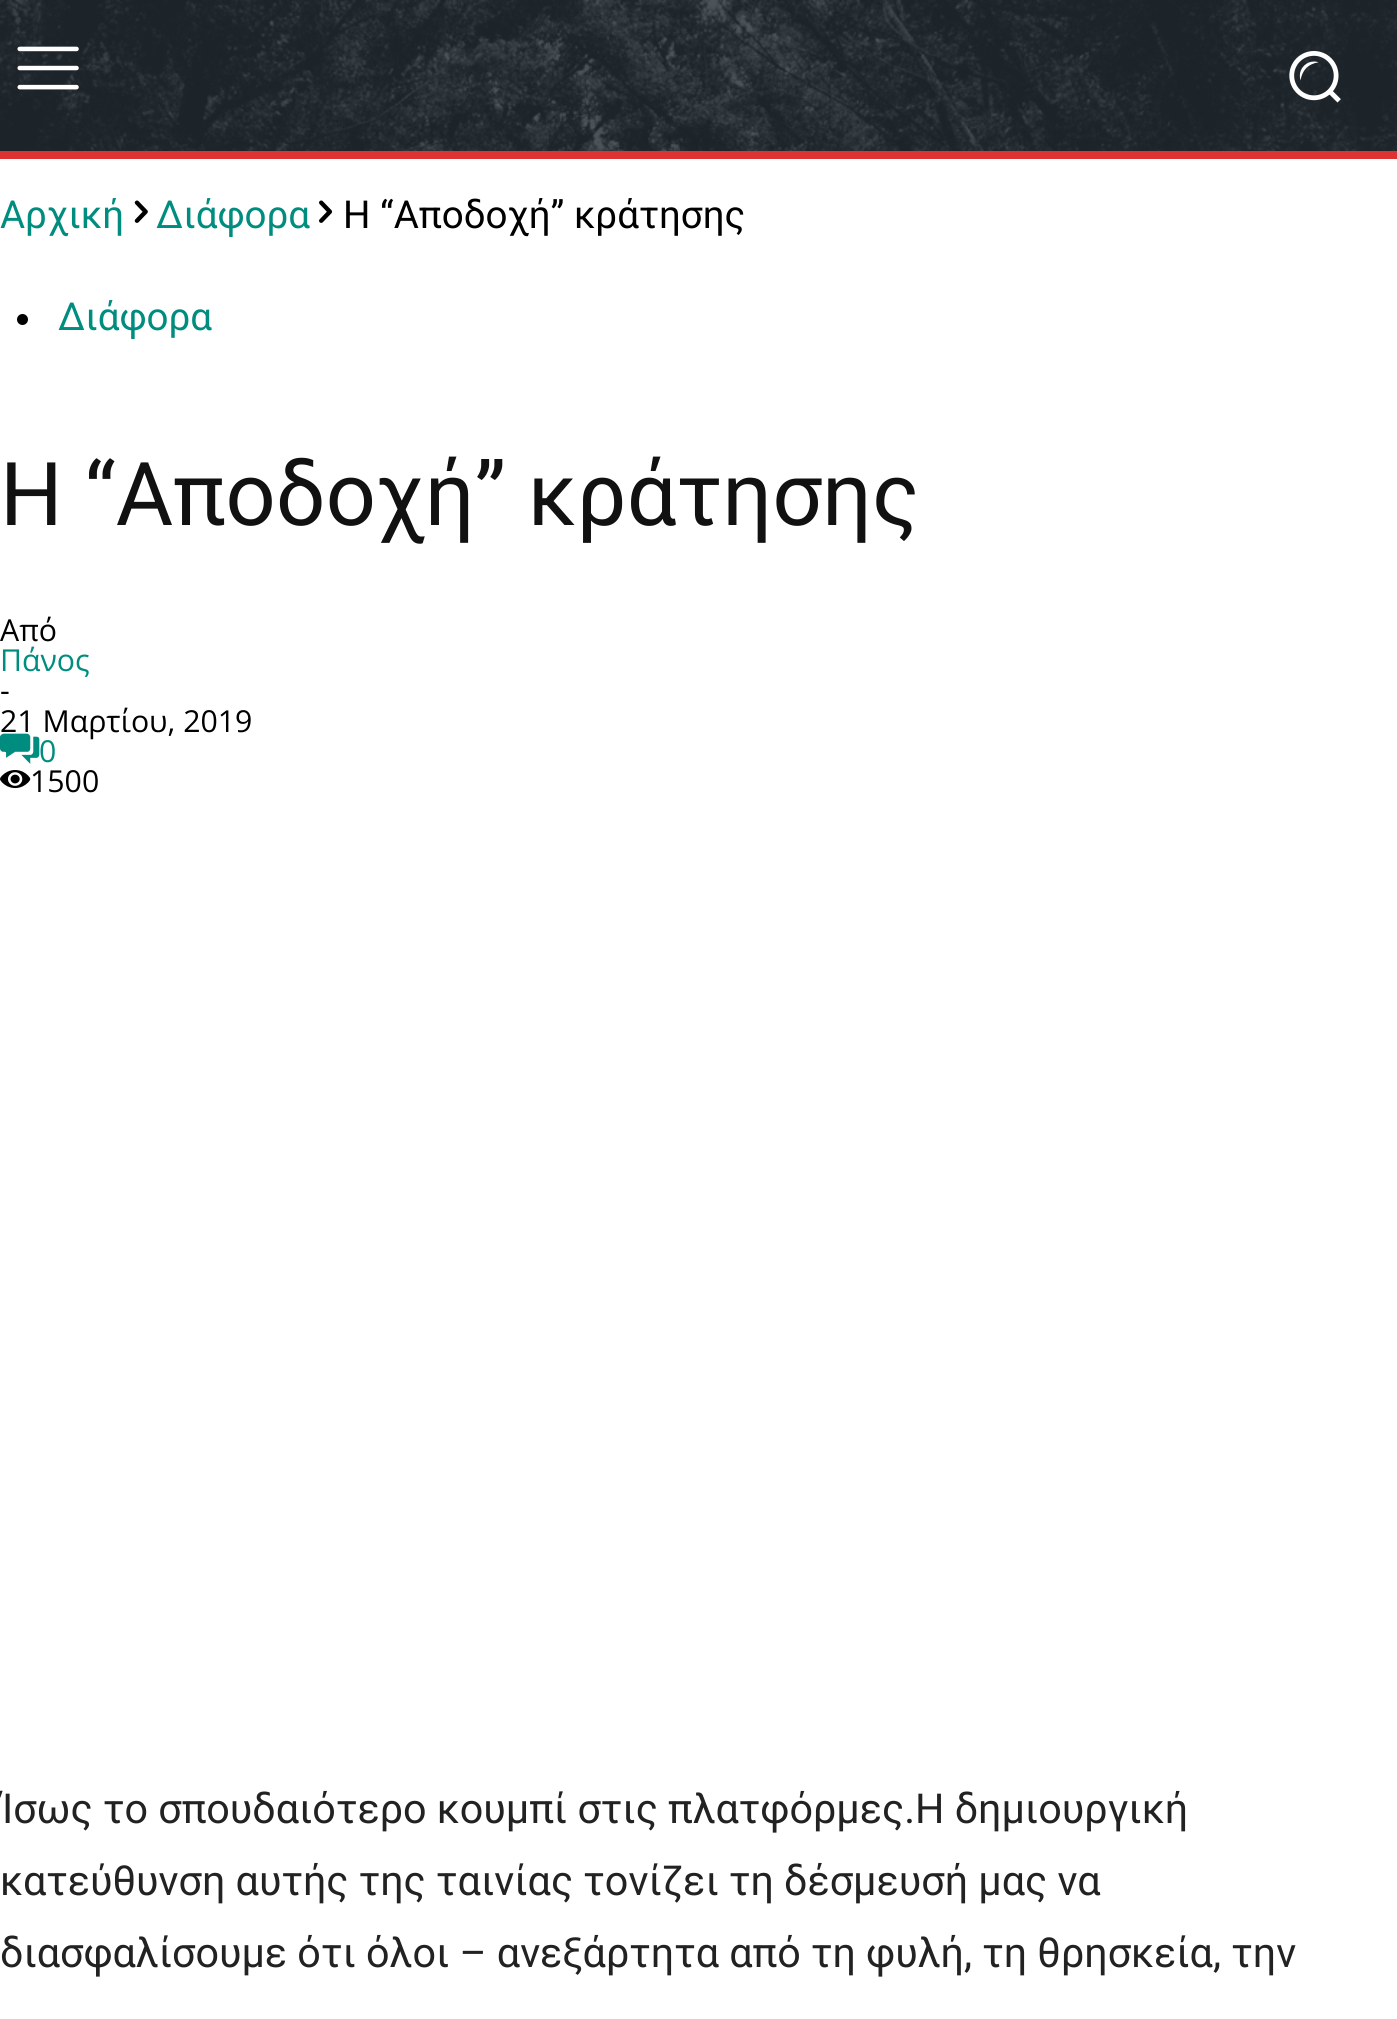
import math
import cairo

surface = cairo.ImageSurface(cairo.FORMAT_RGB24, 1397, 2019)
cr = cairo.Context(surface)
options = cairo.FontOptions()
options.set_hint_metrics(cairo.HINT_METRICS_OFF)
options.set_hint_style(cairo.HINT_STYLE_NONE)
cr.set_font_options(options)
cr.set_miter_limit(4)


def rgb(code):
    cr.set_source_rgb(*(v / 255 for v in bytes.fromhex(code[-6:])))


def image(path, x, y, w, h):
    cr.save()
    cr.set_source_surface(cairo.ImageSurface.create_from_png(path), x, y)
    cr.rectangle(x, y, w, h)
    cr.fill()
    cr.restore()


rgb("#ffffff")
cr.paint()
rgb("#232d35")
cr.rectangle(0, 0, 1397, 151)
cr.fill()
image("img/1.png", 0, 0, 1397, 151)
image("img/2.png", 17, 46, 62, 44)
image("img/3.png", 1289, 51, 52, 52)
rgb("#dd3333")
cr.rectangle(0, 151, 1397, 8)
cr.fill()
image("img/4.png", 134, 200, 14, 23)
image("img/5.png", 319, 200, 14, 23)
rgb("#000000")
cr.arc(22.5, 319.5, 5.5, 0, 2 * math.pi)
cr.fill()
image("img/7.png", 0, 770, 31, 19)
cr.select_font_face("Roboto")
cr.set_font_size(38.5)
rgb("#008d7f")
cr.move_to(0, 228)
cr.show_text("Αρχική")
cr.move_to(156, 228)
cr.show_text("Διάφορα")
rgb("#000000")
cr.move_to(343, 228)
cr.show_text("H “Αποδοχή” κράτησης")
rgb("#008d7f")
cr.move_to(58, 330)
cr.show_text("Διάφορα")
cr.set_font_size(88)
rgb("#111111")
cr.move_to(0, 525)
cr.show_text("H “Αποδοχή” κράτησης")
cr.select_font_face("Open Sans")
cr.set_font_size(30.25)
rgb("#000000")
cr.move_to(0, 641)
cr.show_text("Από")
rgb("#008d7f")
cr.move_to(0, 671)
cr.show_text("Πάνος")
rgb("#000000")
cr.move_to(0, 701)
cr.show_text("-")
cr.move_to(0, 732)
cr.show_text("21 Μαρτίου, 2019")
image("img/6.png", 0, 733, 40, 31)
rgb("#008d7f")
cr.move_to(39, 762)
cr.show_text("0")
rgb("#000000")
cr.move_to(30, 792)
cr.show_text("1500")
cr.select_font_face("Roboto")
cr.set_font_size(41.25)
rgb("#222222")
for x, y, s in [
    (0, 1823, "Ίσως το σπουδαιότερο κουμπί στις πλατφόρμες.Η δημιουργική"),
    (0, 1895, "κατεύθυνση αυτής της ταινίας τονίζει τη δέσμευσή μας να"),
    (0, 1967, "διασφαλίσουμε ότι όλοι – ανεξάρτητα από τη φυλή, τη θρησκεία, την"),
]:
    cr.move_to(x, y)
    cr.show_text(s)
surface.write_to_png("page.png")
